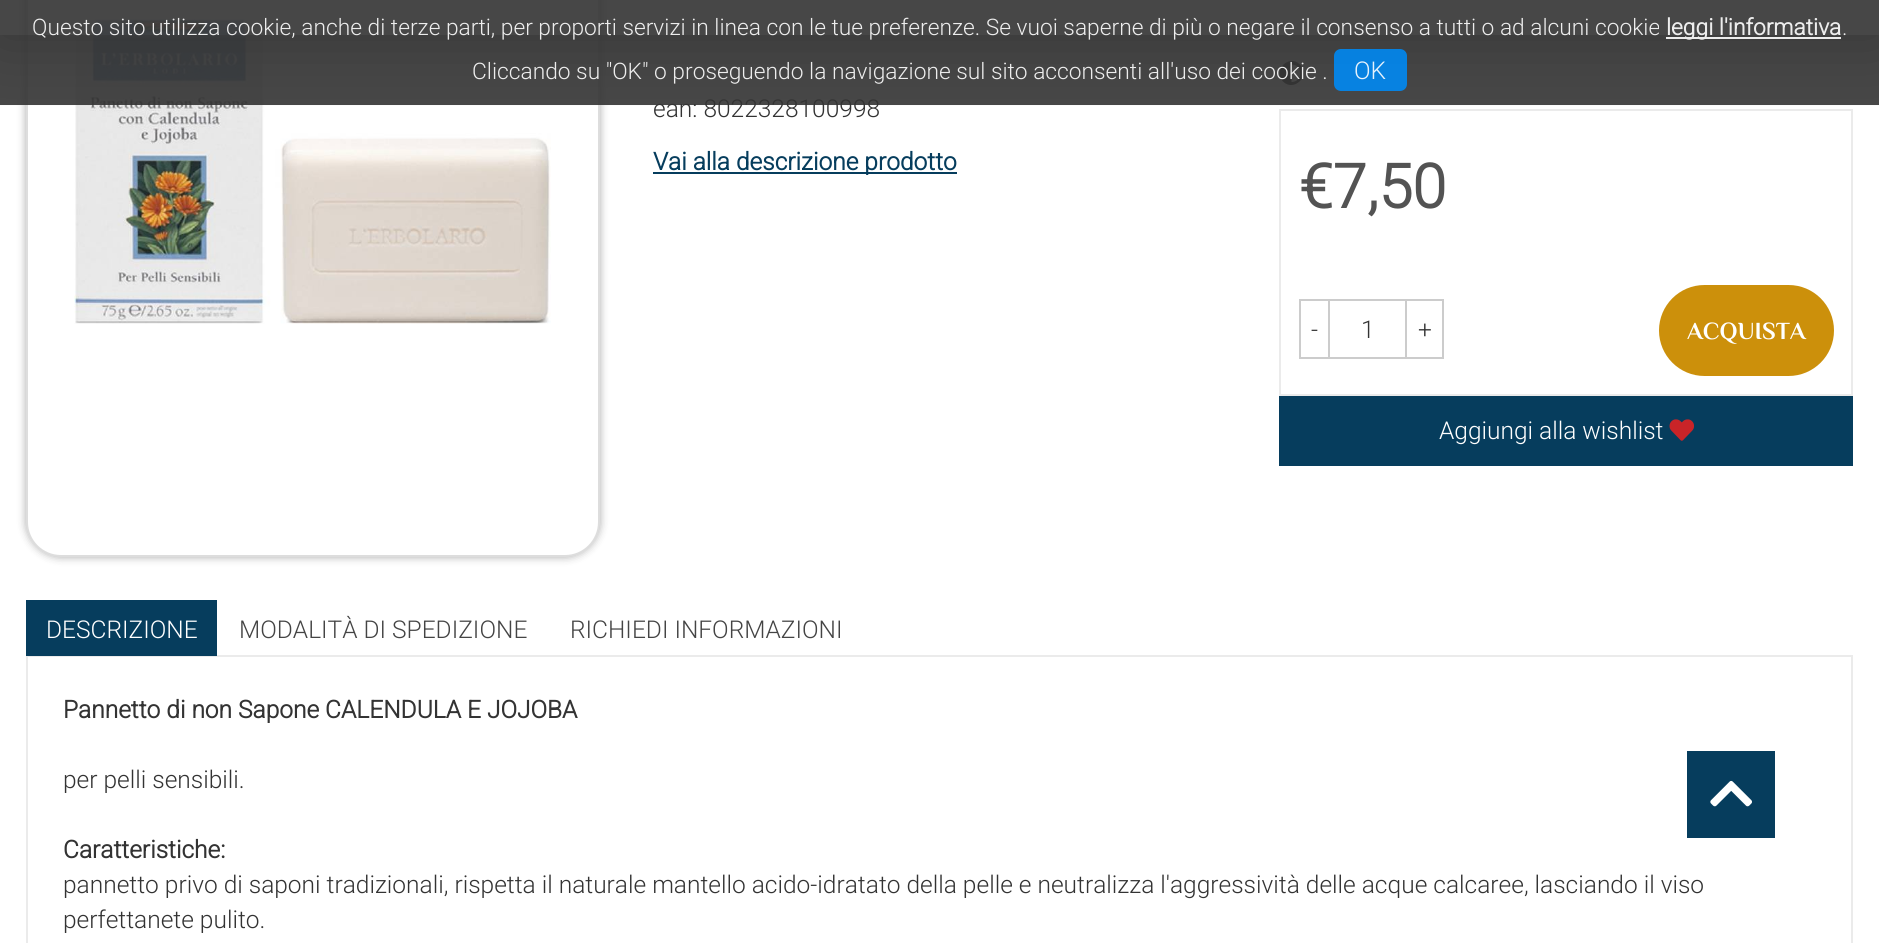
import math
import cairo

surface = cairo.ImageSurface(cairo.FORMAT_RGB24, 1879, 943)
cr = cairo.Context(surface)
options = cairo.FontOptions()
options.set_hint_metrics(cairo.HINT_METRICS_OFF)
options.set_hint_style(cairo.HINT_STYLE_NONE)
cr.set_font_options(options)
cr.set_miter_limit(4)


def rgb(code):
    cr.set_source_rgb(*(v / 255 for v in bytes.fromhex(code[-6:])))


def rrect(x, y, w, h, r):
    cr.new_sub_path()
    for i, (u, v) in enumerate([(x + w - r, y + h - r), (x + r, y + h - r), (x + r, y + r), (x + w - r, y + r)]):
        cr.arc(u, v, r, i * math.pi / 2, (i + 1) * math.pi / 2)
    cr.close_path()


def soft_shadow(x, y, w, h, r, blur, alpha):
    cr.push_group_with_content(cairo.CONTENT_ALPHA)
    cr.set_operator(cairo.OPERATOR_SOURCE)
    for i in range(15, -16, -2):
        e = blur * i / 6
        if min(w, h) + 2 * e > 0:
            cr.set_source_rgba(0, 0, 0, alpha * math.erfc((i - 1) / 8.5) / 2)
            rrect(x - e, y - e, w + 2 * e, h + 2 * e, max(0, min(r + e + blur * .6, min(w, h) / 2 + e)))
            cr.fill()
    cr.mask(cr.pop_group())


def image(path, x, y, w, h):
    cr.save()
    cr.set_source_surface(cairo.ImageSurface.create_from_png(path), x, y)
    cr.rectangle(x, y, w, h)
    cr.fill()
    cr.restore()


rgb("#ffffff")
cr.paint()
rgb("#000000")
soft_shadow(26, -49, 574, 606, 35, 4.5, 0.33)
rgb("#ffffff")
rrect(27, -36, 572, 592, 34)
cr.fill_preserve()
rgb("#dddddd")
cr.stroke()
image("img/1.png", 74, 19, 477, 305)
rgb("#333333")
cr.new_path()
cr.move_to(1283, 81.5)
cr.curve_to(1272, 70.5, 1289, 53.5, 1300, 64.5)
cr.curve_to(1311, 75.5, 1294, 92.5, 1283, 81.5)
cr.close_path()
cr.move_to(1291.5, 82)
cr.curve_to(1303, 82, 1303, 64.5, 1291.5, 64.5)
cr.close_path()
cr.fill()
cr.rectangle(1280, 110, 572, 285)
rgb("#ebebeb")
cr.stroke()
cr.save()
cr.rectangle(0, 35, 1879, 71)
cr.clip()
rgb("#444444")
soft_shadow(0, 0, 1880, 35, 0, 35, 1)
cr.restore()
rgb("#063d5d")
cr.rectangle(653, 172, 304, 2)
cr.fill()
cr.rectangle(1300, 300, 29, 58)
rgb("#cccccc")
cr.stroke()
cr.rectangle(1329, 300, 77, 58)
cr.stroke()
cr.rectangle(1406, 300, 37, 58)
cr.stroke()
rgb("#cc900b")
rrect(1660, 286, 173, 89, 44.5)
cr.fill_preserve()
cr.stroke()
rgb("#063d5d")
cr.rectangle(1279, 396, 574, 70)
cr.fill()
image("img/2.png", 1669, 419, 25, 22)
cr.rectangle(27, 656, 1825, 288)
rgb("#ebebeb")
cr.stroke()
rgb("#063d5d")
cr.rectangle(26, 600, 191, 56)
cr.fill()
cr.rectangle(1687, 751, 88, 87)
cr.fill()
image("img/3.png", 1710, 780, 42, 27)
cr.select_font_face("Roboto Light")
cr.set_font_size(24.5)
rgb("#333333")
cr.move_to(653, 117)
cr.show_text("ean: 8022328100998")
cr.set_source_rgba(0.2, 0.2, 0.2, 0.9)
cr.rectangle(0, 0, 1879, 105)
cr.fill()
cr.set_source_rgba(0, 0.537, 0.949, 0.9)
rrect(1334, 49, 73, 42, 7)
cr.fill()
rgb("#e6f2fc")
cr.move_to(1354, 79)
cr.show_text("OK")
cr.set_font_size(22.75)
rgb("#ededed")
cr.move_to(472, 79)
cr.show_text("Cliccando su \"OK\" o proseguendo la navigazione sul sito acconsenti all'uso dei cookie .")
cr.move_to(1842, 35)
cr.show_text(".")
rgb("#ececec")
cr.rectangle(1666, 37, 175, 2)
cr.fill()
cr.select_font_face("Roboto", cairo.FONT_SLANT_NORMAL, cairo.FONT_WEIGHT_BOLD)
rgb("#ededed")
cr.move_to(1666, 35)
cr.show_text("leggi l'informativa")
cr.select_font_face("Roboto Light")
cr.move_to(32, 35)
cr.show_text("Questo sito utilizza cookie, anche di terze parti, per proporti servizi in linea con le tue preferenze. Se vuoi saperne di più o negare il consenso a tutti o ad alcuni cookie")
cr.select_font_face("Roboto", cairo.FONT_SLANT_NORMAL, cairo.FONT_WEIGHT_BOLD)
cr.set_font_size(24.5)
rgb("#063d5d")
cr.move_to(653, 170)
cr.show_text("Vai alla descrizione prodotto")
cr.set_font_size(61)
rgb("#535353")
cr.move_to(1299, 208)
cr.show_text("€7,50")
cr.select_font_face("Roboto Light")
cr.set_font_size(24.5)
rgb("#333333")
for x, y, s in [
    (1311, 338, "-"),
    (1361, 338, "1"),
    (1418, 338, "+"),
]:
    cr.move_to(x, y)
    cr.show_text(s)
cr.select_font_face("Philosopher", cairo.FONT_SLANT_NORMAL, cairo.FONT_WEIGHT_BOLD)
rgb("#ffffff")
cr.move_to(1687, 339)
cr.show_text("ACQUISTA")
cr.select_font_face("Roboto Light")
cr.move_to(1439, 439)
cr.show_text("Aggiungi alla wishlist")
cr.move_to(46, 638)
cr.show_text("DESCRIZIONE")
rgb("#444444")
cr.move_to(239, 638)
cr.show_text("MODALITÀ DI SPEDIZIONE")
cr.move_to(570, 638)
cr.show_text("RICHIEDI INFORMAZIONI")
cr.select_font_face("Roboto", cairo.FONT_SLANT_NORMAL, cairo.FONT_WEIGHT_BOLD)
rgb("#333333")
cr.move_to(63, 718)
cr.show_text("Pannetto di non Sapone CALENDULA E JOJOBA")
cr.select_font_face("Roboto Light")
cr.move_to(63, 788)
cr.show_text("per pelli sensibili.")
cr.select_font_face("Roboto", cairo.FONT_SLANT_NORMAL, cairo.FONT_WEIGHT_BOLD)
cr.move_to(63, 858)
cr.show_text("Caratteristiche:")
cr.select_font_face("Roboto Light")
cr.move_to(63, 893)
cr.show_text("pannetto privo di saponi tradizionali, rispetta il naturale mantello acido-idratato della pelle e neutralizza l'aggressività delle acque calcaree, lasciando il viso")
cr.move_to(63, 928)
cr.show_text("perfettanete pulito.")
surface.write_to_png("page.png")
